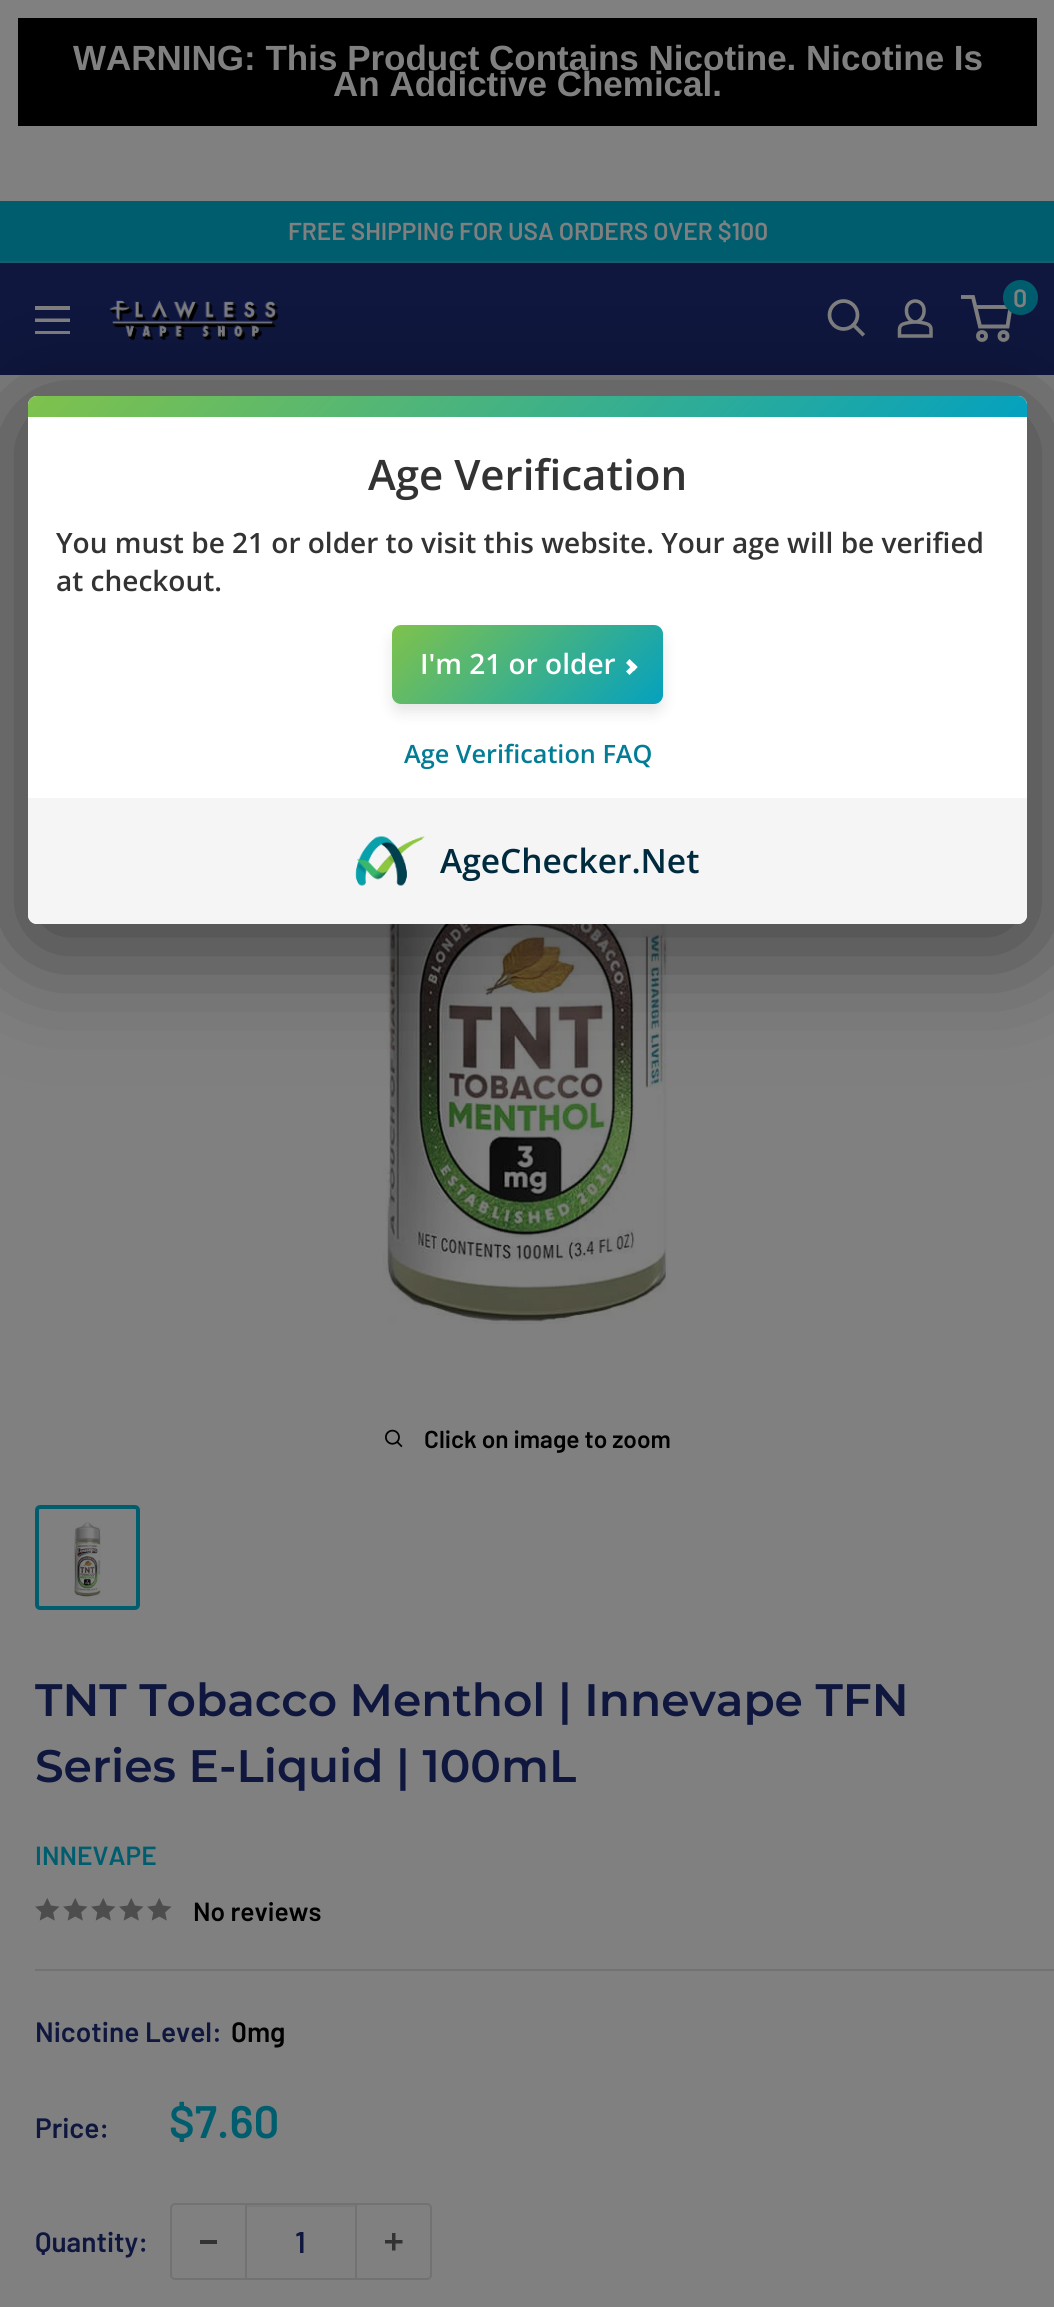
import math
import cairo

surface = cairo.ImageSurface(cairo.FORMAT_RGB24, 1054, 2307)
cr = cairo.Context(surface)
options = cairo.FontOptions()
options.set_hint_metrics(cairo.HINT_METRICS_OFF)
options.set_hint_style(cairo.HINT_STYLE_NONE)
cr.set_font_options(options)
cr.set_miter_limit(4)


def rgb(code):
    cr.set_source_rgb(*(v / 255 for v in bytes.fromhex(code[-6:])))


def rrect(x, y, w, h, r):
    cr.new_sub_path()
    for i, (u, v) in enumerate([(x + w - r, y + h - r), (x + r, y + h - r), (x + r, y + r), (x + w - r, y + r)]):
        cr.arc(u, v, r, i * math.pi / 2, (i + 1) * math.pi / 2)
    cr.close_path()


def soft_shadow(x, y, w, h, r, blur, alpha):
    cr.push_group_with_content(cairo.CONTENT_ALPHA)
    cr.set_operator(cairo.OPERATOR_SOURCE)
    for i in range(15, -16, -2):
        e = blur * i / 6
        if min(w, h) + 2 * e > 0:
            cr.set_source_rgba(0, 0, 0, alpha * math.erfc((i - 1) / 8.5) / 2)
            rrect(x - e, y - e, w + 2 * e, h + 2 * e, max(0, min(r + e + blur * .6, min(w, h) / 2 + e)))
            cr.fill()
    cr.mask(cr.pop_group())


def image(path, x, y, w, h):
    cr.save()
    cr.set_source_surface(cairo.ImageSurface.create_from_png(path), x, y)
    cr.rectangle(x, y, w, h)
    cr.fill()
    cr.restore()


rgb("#808080")
cr.paint()
for x, y, w, h, color in [
    (18, 18, 1019, 108, "#000000"),
    (0, 201, 1054, 60, "#005d6e"),
    (0, 261, 1054, 2, "#195c71"),
    (0, 263, 1054, 112, "#0f173f"),
]:
    rgb(color)
    cr.rectangle(x, y, w, h)
    cr.fill()
rgb("#808080")
cr.set_fill_rule(cairo.FILL_RULE_EVEN_ODD)
cr.new_path()
cr.move_to(35, 331)
cr.line_to(70, 331)
cr.line_to(70, 334)
cr.line_to(35, 334)
cr.close_path()
cr.move_to(35, 306)
cr.line_to(70, 306)
cr.line_to(70, 310)
cr.line_to(35, 310)
cr.close_path()
cr.move_to(35, 318.5)
cr.line_to(70, 318.5)
cr.line_to(70, 322)
cr.line_to(35, 322)
cr.close_path()
cr.fill()
image("img/1.png", 108, 299, 171, 42)
cr.new_path()
cr.move_to(862.5, 334)
cr.line_to(853.5, 325)
cr.set_line_width(3.7)
cr.set_line_cap(cairo.LINE_CAP_SQUARE)
cr.stroke()
cr.arc(843.5, 315, 14, 0, 2 * math.pi)
cr.set_line_cap(cairo.LINE_CAP_BUTT)
cr.stroke()
image("img/2.png", 897, 299, 36, 39)
cr.arc(982, 336, 4, 0, 2 * math.pi)
cr.set_line_width(3.9)
cr.stroke()
cr.arc(1003.5, 336, 4, 0, 2 * math.pi)
cr.stroke()
cr.new_path()
cr.move_to(975, 307)
cr.line_to(1010.5, 307)
cr.line_to(1007.5, 326.5)
cr.line_to(980, 326.5)
cr.line_to(973, 297)
cr.line_to(961, 297)
cr.stroke()
rgb("#005d6e")
cr.arc(1020.5, 297.5, 17.5, 0, 2 * math.pi)
cr.fill()
image("img/4.png", 383, 924, 285, 400)
rgb("#000000")
soft_shadow(23, 408, 1010, 539, 14, 56, 0.5)
rgb("#ffffff")
rrect(28, 396, 999, 528, 9)
cr.fill()
gradient = cairo.LinearGradient(273, 151, 783, 661)
gradient.add_color_stop_rgba(0, 0.498, 0.761, 0.298, 1)
gradient.add_color_stop_rgba(1, 0.016, 0.631, 0.749, 1)
cr.set_source(gradient)
cr.new_path()
cr.move_to(37, 396)
cr.line_to(1018, 396)
cr.curve_to(1023, 396, 1027, 400, 1027, 405)
cr.line_to(1027, 417)
cr.line_to(28, 417)
cr.line_to(28, 405)
cr.curve_to(28, 400, 32, 396, 37, 396)
cr.close_path()
cr.fill()
rgb("#000000")
soft_shadow(392, 634, 271, 78, 9, 7, 0.1)
gradient = cairo.LinearGradient(440, 577, 615, 752)
gradient.add_color_stop_rgba(0, 0.498, 0.761, 0.298, 1)
gradient.add_color_stop_rgba(1, 0.016, 0.631, 0.749, 1)
cr.set_source(gradient)
rrect(392, 625, 271, 79, 9)
cr.fill()
rgb("#ffffff")
cr.set_fill_rule(cairo.FILL_RULE_WINDING)
cr.new_path()
cr.move_to(626, 663)
cr.line_to(629.5, 659)
cr.line_to(637.5, 667)
cr.line_to(634, 671)
cr.close_path()
cr.fill()
cr.new_path()
cr.move_to(626, 671.5)
cr.line_to(634, 663.5)
cr.line_to(637.5, 667)
cr.line_to(629.5, 675)
cr.close_path()
cr.fill()
rgb("#f5f5f5")
cr.new_path()
cr.move_to(28, 798)
cr.line_to(1027, 798)
cr.line_to(1027, 915)
cr.curve_to(1027, 920, 1023, 924, 1018, 924)
cr.line_to(37, 924)
cr.curve_to(32, 924, 28, 920, 28, 915)
cr.close_path()
cr.fill()
image("img/3.png", 355, 836, 70, 50)
image("img/5.png", 385, 1429, 18, 19)
rrect(37, 1507, 101, 101, 3)
rgb("#005d6e")
cr.set_line_width(4)
cr.stroke()
image("img/6.png", 74, 1522, 27, 77)
image("img/7.png", 35, 1898, 25, 23)
image("img/7.png", 63, 1898, 25, 23)
image("img/7.png", 91, 1898, 25, 23)
image("img/7.png", 119, 1898, 25, 23)
image("img/7.png", 147, 1898, 25, 23)
rgb("#717272")
cr.rectangle(35, 1969, 1019, 2)
cr.fill()
rrect(171, 2204, 260, 75, 4)
cr.set_line_width(2)
cr.stroke()
for x, y, w, h, color in [
    (200, 2240, 17, 4, "#333333"),
    (247, 2205, 108, 2, "#7a7a7a"),
    (355, 2205, 2, 74, "#717272"),
    (245, 2205, 2, 74, "#717272"),
]:
    rgb(color)
    cr.rectangle(x, y, w, h)
    cr.fill()
image("img/8.png", 385, 2233, 18, 18)
cr.select_font_face("Liberation Sans", cairo.FONT_SLANT_NORMAL, cairo.FONT_WEIGHT_BOLD)
cr.set_font_size(35)
rgb("#808080")
cr.move_to(73, 70)
cr.show_text("WARNING: This Product Contains Nicotine. Nicotine Is")
cr.move_to(333, 96)
cr.show_text("An Addictive Chemical.")
cr.select_font_face("Barlow SemiBold")
cr.set_font_size(24.5)
cr.move_to(288, 240)
cr.show_text("FREE SHIPPING FOR USA ORDERS OVER $100")
cr.set_font_size(25)
cr.move_to(1013, 307)
cr.show_text("0")
cr.select_font_face("Open Sans SemiBold")
cr.set_font_size(42)
rgb("#333333")
cr.move_to(368, 490)
cr.show_text("Age Verification")
cr.set_font_size(28)
cr.move_to(56, 553)
cr.show_text("You must be 21 or older to visit this website. Your age will be verified")
cr.move_to(56, 591)
cr.show_text("at checkout.")
rgb("#ffffff")
cr.move_to(420, 674)
cr.show_text("I'm 21 or older")
cr.set_font_size(25.25)
rgb("#037d96")
cr.move_to(404, 763)
cr.show_text("Age Verification FAQ")
cr.set_font_size(33.5)
rgb("#002b3e")
cr.move_to(440, 873)
cr.show_text("AgeChecker.Net")
cr.select_font_face("Barlow SemiBold")
cr.set_font_size(24.5)
rgb("#000000")
cr.move_to(424, 1448)
cr.show_text("Click on image to zoom")
cr.select_font_face("Montserrat SemiBold")
cr.set_font_size(45.5)
rgb("#0f173f")
cr.move_to(35, 1716)
cr.show_text("TNT Tobacco Menthol | Innevape TFN")
cr.move_to(35, 1782)
cr.show_text("Series E-Liquid | 100mL")
cr.select_font_face("Barlow SemiBold")
cr.set_font_size(26.25)
rgb("#005d6e")
cr.move_to(35, 1865)
cr.show_text("INNEVAPE")
rgb("#000000")
cr.move_to(193, 1921)
cr.show_text("No reviews")
cr.set_font_size(28)
rgb("#0f173f")
cr.move_to(35, 2042)
cr.show_text("Nicotine Level:")
rgb("#000000")
cr.move_to(231, 2042)
cr.show_text("0mg")
rgb("#0f173f")
cr.move_to(35, 2138)
cr.show_text("Price:")
cr.set_font_size(45.5)
rgb("#005d6e")
cr.move_to(169, 2138)
cr.show_text("$7.60")
cr.set_font_size(28)
rgb("#0f173f")
cr.move_to(35, 2252)
cr.show_text("Quantity:")
cr.set_font_size(30)
cr.move_to(295, 2253)
cr.show_text("1")
surface.write_to_png("page.png")
